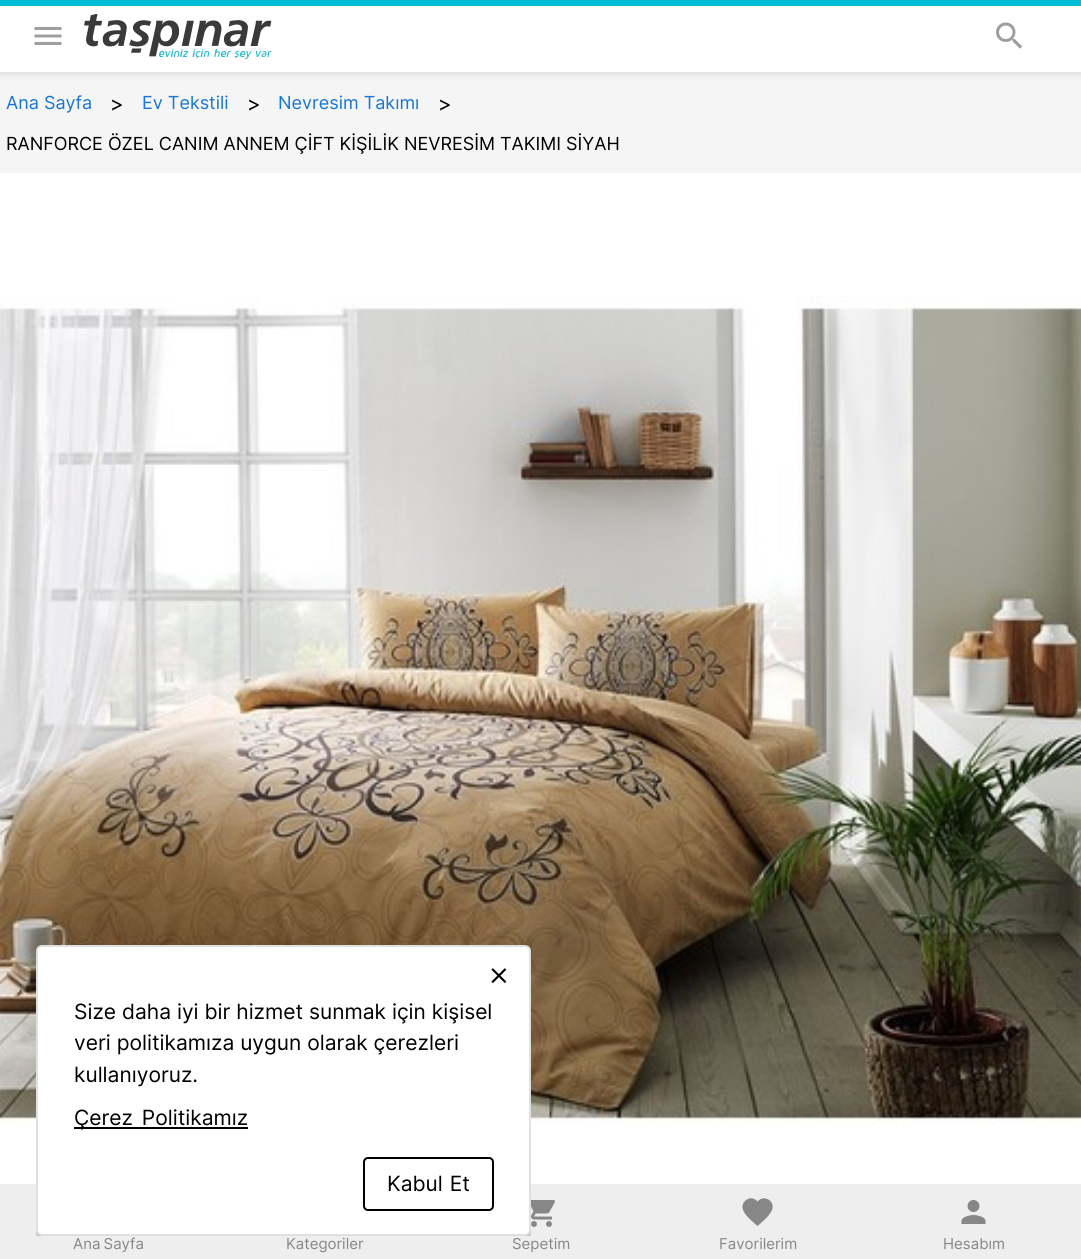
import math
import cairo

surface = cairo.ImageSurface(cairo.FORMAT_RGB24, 1081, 1259)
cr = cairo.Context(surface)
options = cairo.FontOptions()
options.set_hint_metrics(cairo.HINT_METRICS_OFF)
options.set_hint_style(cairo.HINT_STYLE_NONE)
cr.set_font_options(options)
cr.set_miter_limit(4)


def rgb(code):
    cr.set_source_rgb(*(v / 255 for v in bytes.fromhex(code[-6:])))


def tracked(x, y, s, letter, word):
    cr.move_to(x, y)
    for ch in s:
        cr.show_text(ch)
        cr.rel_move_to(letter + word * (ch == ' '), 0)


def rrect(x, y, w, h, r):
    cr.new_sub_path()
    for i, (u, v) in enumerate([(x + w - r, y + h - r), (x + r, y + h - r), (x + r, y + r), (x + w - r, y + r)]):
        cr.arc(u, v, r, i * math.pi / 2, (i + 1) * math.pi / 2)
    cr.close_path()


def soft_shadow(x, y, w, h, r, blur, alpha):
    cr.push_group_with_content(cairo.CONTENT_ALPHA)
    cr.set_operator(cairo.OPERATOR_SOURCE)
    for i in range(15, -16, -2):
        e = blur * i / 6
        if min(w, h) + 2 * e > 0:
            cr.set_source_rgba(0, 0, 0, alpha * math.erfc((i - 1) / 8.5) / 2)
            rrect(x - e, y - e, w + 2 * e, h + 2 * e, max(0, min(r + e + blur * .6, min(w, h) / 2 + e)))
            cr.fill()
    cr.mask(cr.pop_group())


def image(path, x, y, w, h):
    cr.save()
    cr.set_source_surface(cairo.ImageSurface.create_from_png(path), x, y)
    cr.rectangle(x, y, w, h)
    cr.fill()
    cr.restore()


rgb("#ffffff")
cr.paint()
rgb("#f5f5f5")
cr.rectangle(0, 72, 1081, 101)
cr.fill()
cr.save()
cr.rectangle(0, 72, 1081, 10)
cr.clip()
rgb("#cccccc")
soft_shadow(0, 0, 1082, 72, 0, 5, 1)
cr.restore()
rgb("#00bcd4")
cr.rectangle(0, 0, 1081, 6)
cr.fill()
image("img/1.png", 34, 27, 28, 18)
image("img/2.png", 84, 14, 188, 45)
image("img/3.png", 996, 22, 27, 27)
image("img/4.png", 0, 296, 1081, 829)
rgb("#eeeeee")
cr.rectangle(0, 1184, 1081, 75)
cr.fill()
image("img/5.png", 531, 1199, 24, 28)
rgb("#878787")
cr.new_path()
cr.move_to(757.5, 1226)
cr.curve_to(753, 1222, 746, 1216.5, 743.5, 1211)
cr.curve_to(739, 1202, 750.5, 1193.5, 757.5, 1201.5)
cr.curve_to(764, 1194, 775.5, 1201, 772, 1210)
cr.curve_to(769, 1216.5, 762.5, 1221.5, 757.5, 1226)
cr.close_path()
cr.fill()
image("img/6.png", 961, 1200, 25, 24)
cr.save()
cr.new_path()
cr.move_to(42, 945)
cr.line_to(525, 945)
cr.curve_to(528.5, 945, 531, 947.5, 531, 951)
cr.line_to(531, 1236)
cr.line_to(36, 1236)
cr.line_to(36, 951)
cr.curve_to(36, 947.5, 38.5, 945, 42, 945)
cr.close_path()
cr.clip()
rgb("#000000")
soft_shadow(39, 953, 489, 285, 3, 1, 0.12)
soft_shadow(36, 948, 495, 291, 6, 1.5, 0.14)
soft_shadow(36, 947, 495, 291, 6, 4, 0.2)
cr.restore()
rgb("#ffffff")
rrect(37, 946, 493, 289, 5)
cr.fill_preserve()
rgb("#e0e0e0")
cr.stroke()
image("img/7.png", 491, 968, 16, 15)
rgb("#000000")
cr.rectangle(74, 1127, 174, 2)
cr.fill()
rrect(364, 1158, 129, 52, 4)
cr.stroke()
cr.select_font_face("Inter")
cr.set_font_size(18)
rgb("#1976d2")
cr.move_to(6, 109)
cr.show_text("Ana Sayfa")
cr.set_font_size(21)
rgb("#000000")
cr.move_to(110, 111)
cr.show_text(">")
cr.set_font_size(18)
rgb("#1976d2")
cr.move_to(142, 109)
cr.show_text("Ev Tekstili")
cr.set_font_size(21)
rgb("#000000")
cr.move_to(247, 111)
cr.show_text(">")
cr.set_font_size(18)
rgb("#1976d2")
cr.move_to(278, 109)
cr.show_text("Nevresim Takımı")
cr.set_font_size(21)
rgb("#000000")
cr.move_to(438, 111)
cr.show_text(">")
cr.set_font_size(18)
cr.move_to(6, 150)
cr.show_text("RANFORCE ÖZEL CANIM ANNEM ÇİFT KİŞİLİK NEVRESİM TAKIMI SİYAH")
cr.set_font_size(15)
rgb("#878787")
tracked(73, 1249, "Ana Sayfa", 0, -1)
for x, y, s in [
    (286, 1249, "Kategoriler"),
    (512, 1249, "Sepetim"),
    (719, 1249, "Favorilerim"),
    (943, 1249, "Hesabım"),
]:
    cr.move_to(x, y)
    cr.show_text(s)
cr.set_font_size(21)
rgb("#000000")
for x, y, s in [
    (74, 1019, "Size daha iyi bir hizmet sunmak için kişisel"),
    (74, 1050, "veri politikamıza uygun olarak çerezleri"),
    (74, 1082, "kullanıyoruz."),
]:
    cr.move_to(x, y)
    cr.show_text(s)
tracked(74, 1125, "Çerez Politikamız", 0, 3)
tracked(387, 1191, "Kabul Et", 0, 1)
surface.write_to_png("page.png")
